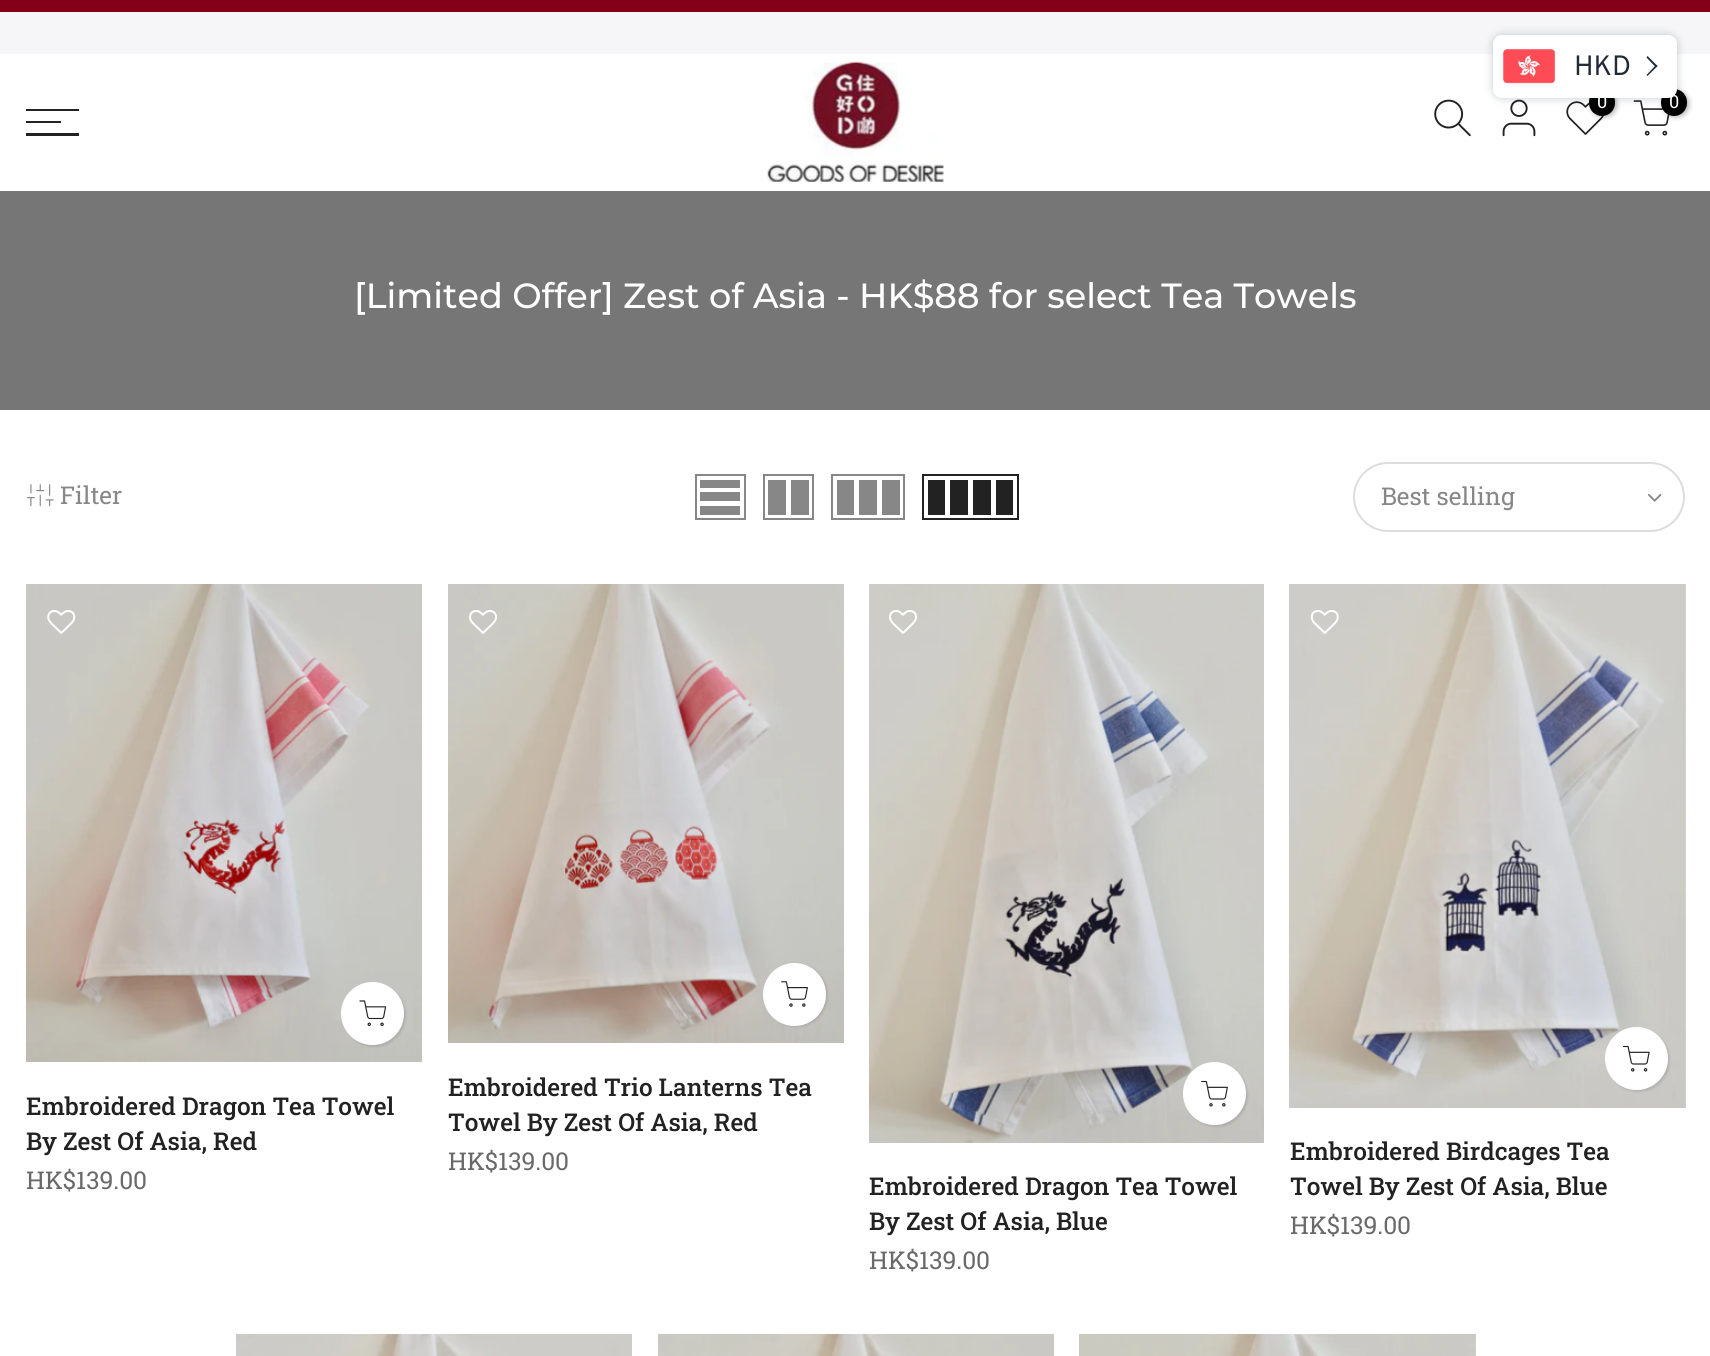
import math
import cairo

surface = cairo.ImageSurface(cairo.FORMAT_RGB24, 1710, 1356)
cr = cairo.Context(surface)
options = cairo.FontOptions()
options.set_hint_metrics(cairo.HINT_METRICS_OFF)
options.set_hint_style(cairo.HINT_STYLE_NONE)
cr.set_font_options(options)
cr.set_miter_limit(4)


def rgb(code):
    cr.set_source_rgb(*(v / 255 for v in bytes.fromhex(code[-6:])))


def rrect(x, y, w, h, r):
    cr.new_sub_path()
    for i, (u, v) in enumerate([(x + w - r, y + h - r), (x + r, y + h - r), (x + r, y + r), (x + w - r, y + r)]):
        cr.arc(u, v, r, i * math.pi / 2, (i + 1) * math.pi / 2)
    cr.close_path()


def soft_shadow(x, y, w, h, r, blur, alpha):
    cr.push_group_with_content(cairo.CONTENT_ALPHA)
    cr.set_operator(cairo.OPERATOR_SOURCE)
    for i in range(15, -16, -2):
        e = blur * i / 6
        if min(w, h) + 2 * e > 0:
            cr.set_source_rgba(0, 0, 0, alpha * math.erfc((i - 1) / 8.5) / 2)
            rrect(x - e, y - e, w + 2 * e, h + 2 * e, max(0, min(r + e + blur * .6, min(w, h) / 2 + e)))
            cr.fill()
    cr.mask(cr.pop_group())


def image(path, x, y, w, h):
    cr.save()
    cr.set_source_surface(cairo.ImageSurface.create_from_png(path), x, y)
    cr.rectangle(x, y, w, h)
    cr.fill()
    cr.restore()


rgb("#ffffff")
cr.paint()
rgb("#840018")
cr.rectangle(0, 0, 1710, 12)
cr.fill()
rgb("#f6f6f8")
cr.rectangle(0, 12, 1710, 42)
cr.fill()
image("img/4.png", 1502, 99, 34, 38)
image("img/5.png", 1566, 101, 38, 34)
rgb("#000000")
soft_shadow(1591, 91, 26, 26, 13, 2.5, 0.3)
rgb("#000000")
rrect(1589, 89, 26, 27, 13)
cr.fill()
image("img/6.png", 1633, 100, 37, 36)
rgb("#000000")
soft_shadow(1663, 91, 26, 26, 13, 2.5, 0.3)
rgb("#000000")
rrect(1661, 89, 26, 27, 13)
cr.fill()
rgb("#212b36")
soft_shadow(1493, 35, 184, 63, 9, 4.5, 0.25)
rgb("#ffffff")
rrect(1493, 35, 184, 63, 9)
cr.fill()
image("img/1.png", 1503, 49, 52, 35)
rgb("#212b36")
cr.new_path()
cr.move_to(1646.5, 57.5)
cr.line_to(1647.5, 56)
cr.line_to(1657.5, 66)
cr.line_to(1656, 67.5)
cr.close_path()
cr.fill()
cr.new_path()
cr.move_to(1646.5, 75)
cr.line_to(1656, 65)
cr.line_to(1657.5, 66)
cr.line_to(1647.5, 76)
cr.close_path()
cr.fill()
image("img/2.png", 767, 61, 177, 121)
image("img/3.png", 1434, 99, 37, 38)
for x, y, w, h, color in [
    (26, 109, 53, 2, "#222222"),
    (26, 121, 35, 2, "#222222"),
    (26, 133, 53, 3, "#222222"),
    (0, 191, 1710, 219, "#767676"),
]:
    rgb(color)
    cr.rectangle(x, y, w, h)
    cr.fill()
image("img/7.png", 26, 484, 28, 23)
cr.rectangle(696, 475, 49, 44)
rgb("#878787")
cr.stroke()
for x, y, w, h, color in [
    (700, 506, 40, 9, "#878787"),
    (700, 492, 40, 9, "#878787"),
    (700, 480, 40, 8, "#878787"),
]:
    rgb(color)
    cr.rectangle(x, y, w, h)
    cr.fill()
cr.rectangle(764, 475, 49, 44)
cr.stroke()
cr.rectangle(791, 480, 18, 35)
cr.fill()
cr.rectangle(768, 480, 18, 35)
cr.fill()
cr.rectangle(832, 475, 72, 44)
cr.stroke()
for x, y, w, h, color in [
    (882, 480, 18, 35, "#878787"),
    (859, 480, 18, 35, "#878787"),
    (837, 480, 17, 35, "#878787"),
]:
    rgb(color)
    cr.rectangle(x, y, w, h)
    cr.fill()
cr.rectangle(923, 475, 95, 44)
rgb("#222222")
cr.stroke()
for x, y, w, h, color in [
    (996, 480, 17, 35, "#222222"),
    (973, 480, 18, 35, "#222222"),
    (950, 480, 18, 35, "#222222"),
    (928, 480, 17, 35, "#222222"),
]:
    rgb(color)
    cr.rectangle(x, y, w, h)
    cr.fill()
rrect(1354, 463, 330, 68, 34)
rgb("#dddddd")
cr.stroke()
image("img/8.png", 1647, 493, 15, 9)
image("img/9.png", 26, 584, 396, 478)
image("img/10.png", 47, 610, 29, 24)
rgb("#000000")
soft_shadow(343, 984, 63, 63, 31.5, 1, 0.1)
rgb("#ffffff")
cr.arc(372.5, 1013.5, 31.5, 0, 2 * math.pi)
cr.fill()
image("img/11.png", 359, 1000, 28, 27)
image("img/12.png", 448, 584, 396, 459)
image("img/13.png", 469, 610, 28, 24)
rgb("#000000")
soft_shadow(765, 964, 63, 63, 31.5, 1, 0.1)
rgb("#ffffff")
cr.arc(794.5, 994.5, 31.5, 0, 2 * math.pi)
cr.fill()
image("img/14.png", 781, 981, 27, 26)
image("img/15.png", 869, 584, 395, 559)
image("img/16.png", 889, 610, 28, 24)
rgb("#000000")
soft_shadow(1185, 1064, 63, 63, 31.5, 1, 0.1)
rgb("#ffffff")
cr.arc(1214.5, 1093.5, 31.5, 0, 2 * math.pi)
cr.fill()
image("img/17.png", 1201, 1080, 27, 27)
cr.new_path()
cr.move_to(1204, 1104.5)
cr.curve_to(1198.5, 1098.5, 1198.5, 1089, 1204, 1083)
cr.set_line_width(1.8)
cr.stroke()
image("img/18.png", 1289, 584, 397, 524)
image("img/19.png", 1310, 610, 29, 24)
rgb("#000000")
soft_shadow(1607, 1029, 63, 63, 31.5, 1, 0.1)
rgb("#ffffff")
cr.arc(1636.5, 1058.5, 31.5, 0, 2 * math.pi)
cr.fill()
image("img/20.png", 1622, 1045, 28, 27)
cr.new_path()
cr.move_to(1625.5, 1069.5)
cr.curve_to(1620, 1063.5, 1620, 1054, 1625.5, 1048)
cr.stroke()
image("img/21.png", 236, 1334, 396, 22)
image("img/22.png", 658, 1334, 396, 22)
image("img/23.png", 1079, 1334, 397, 22)
cr.select_font_face("Overpass")
cr.set_font_size(28)
rgb("#212b36")
cr.move_to(1574, 75)
cr.show_text("HKD")
cr.select_font_face("Roboto Slab")
cr.set_font_size(18)
rgb("#ffffff")
cr.move_to(1597, 108)
cr.show_text("0")
cr.move_to(1669, 108)
cr.show_text("0")
cr.select_font_face("Montserrat Medium")
cr.set_font_size(35)
cr.move_to(354, 308)
cr.show_text("[Limited Offer] Zest of Asia - HK$88 for select Tea Towels")
cr.select_font_face("Roboto Slab")
cr.set_font_size(24.5)
rgb("#878787")
cr.move_to(60, 504)
cr.show_text("Filter")
cr.move_to(1381, 505)
cr.show_text("Best selling")
cr.select_font_face("Roboto Slab Medium")
rgb("#222222")
cr.move_to(26, 1115)
cr.show_text("Embroidered Dragon Tea Towel")
cr.move_to(26, 1150)
cr.show_text("By Zest Of Asia, Red")
cr.select_font_face("Roboto Slab")
rgb("#696969")
cr.move_to(26, 1189)
cr.show_text("HK$139.00")
cr.select_font_face("Roboto Slab Medium")
rgb("#222222")
cr.move_to(448, 1096)
cr.show_text("Embroidered Trio Lanterns Tea")
cr.move_to(448, 1131)
cr.show_text("Towel By Zest Of Asia, Red")
cr.select_font_face("Roboto Slab")
rgb("#696969")
cr.move_to(448, 1170)
cr.show_text("HK$139.00")
cr.select_font_face("Roboto Slab Medium")
rgb("#222222")
cr.move_to(869, 1195)
cr.show_text("Embroidered Dragon Tea Towel")
cr.move_to(869, 1230)
cr.show_text("By Zest Of Asia, Blue")
cr.select_font_face("Roboto Slab")
rgb("#696969")
cr.move_to(869, 1269)
cr.show_text("HK$139.00")
cr.select_font_face("Roboto Slab Medium")
rgb("#222222")
cr.move_to(1290, 1160)
cr.show_text("Embroidered Birdcages Tea")
cr.move_to(1290, 1195)
cr.show_text("Towel By Zest Of Asia, Blue")
cr.select_font_face("Roboto Slab")
rgb("#696969")
cr.move_to(1290, 1234)
cr.show_text("HK$139.00")
surface.write_to_png("page.png")
